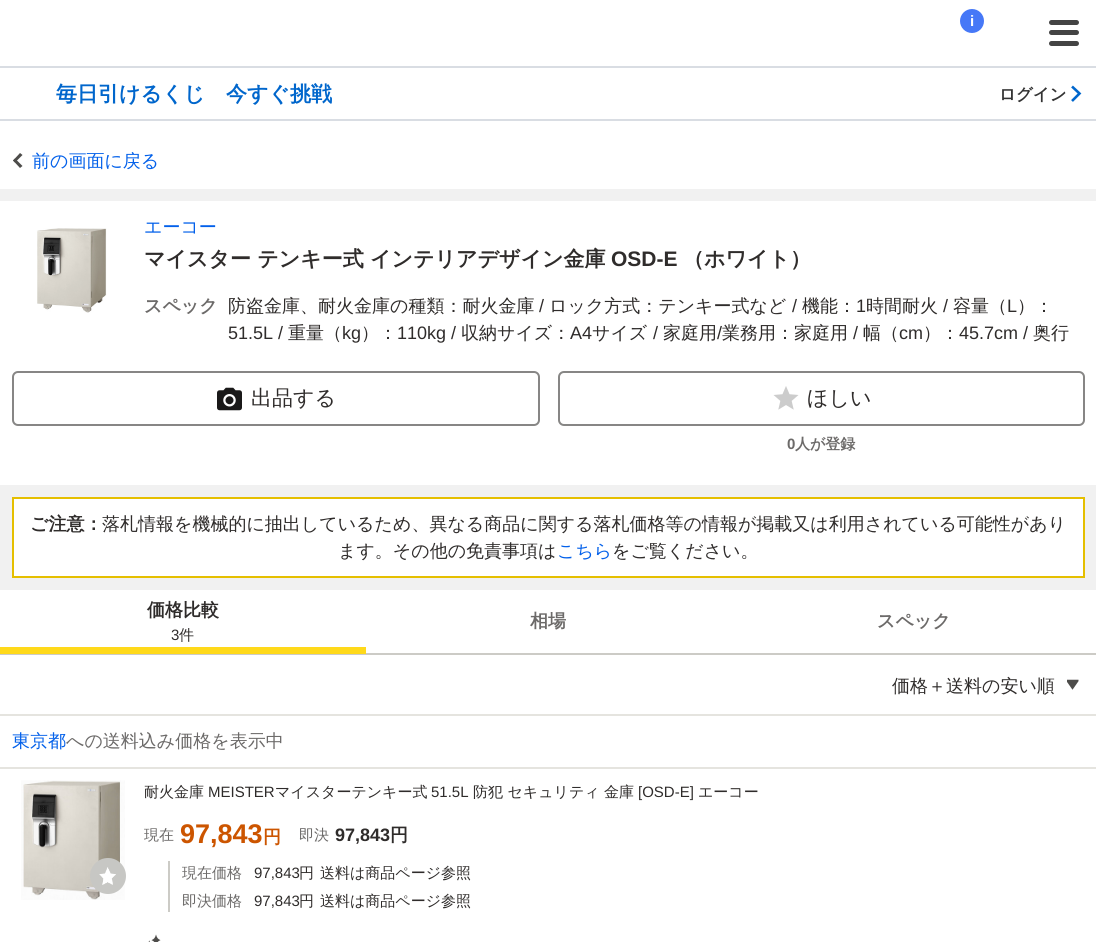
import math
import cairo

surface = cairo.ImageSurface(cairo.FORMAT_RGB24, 1096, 942)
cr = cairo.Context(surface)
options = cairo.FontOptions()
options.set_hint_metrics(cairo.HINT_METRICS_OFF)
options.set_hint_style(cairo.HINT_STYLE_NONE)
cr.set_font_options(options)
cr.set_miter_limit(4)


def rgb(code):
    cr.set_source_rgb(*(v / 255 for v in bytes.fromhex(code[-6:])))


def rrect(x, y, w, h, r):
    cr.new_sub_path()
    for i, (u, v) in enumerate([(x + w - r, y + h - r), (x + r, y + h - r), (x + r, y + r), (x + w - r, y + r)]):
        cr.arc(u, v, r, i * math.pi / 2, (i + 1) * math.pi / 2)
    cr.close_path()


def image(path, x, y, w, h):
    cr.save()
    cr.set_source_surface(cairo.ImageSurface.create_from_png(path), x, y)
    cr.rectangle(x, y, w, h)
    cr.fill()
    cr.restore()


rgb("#ffffff")
cr.paint()
rgb("#4678f7")
cr.arc(972, 21, 13.5, 0, 2 * math.pi)
cr.fill_preserve()
rgb("#ffffff")
cr.set_line_width(3)
cr.stroke()
rgb("#444444")
rrect(1049, 30, 30, 5, 2.5)
cr.fill()
rrect(1049, 20, 30, 5, 2.5)
cr.fill()
rrect(1049, 41, 30, 5, 2.5)
cr.fill()
rgb("#d9dde3")
cr.rectangle(0, 66, 1096, 2)
cr.fill()
cr.rectangle(0, 119, 1096, 2)
cr.fill()
cr.new_path()
cr.move_to(1072, 86.5)
cr.line_to(1079.5, 93.5)
cr.line_to(1072, 101)
rgb("#0066cc")
cr.set_line_width(2.6)
cr.stroke()
rgb("#f1f1f1")
cr.rectangle(0, 189, 1096, 401)
cr.fill()
rgb("#4d4c4a")
cr.new_path()
cr.move_to(20, 168)
cr.line_to(13, 160.5)
cr.line_to(15, 158.5)
cr.line_to(22.5, 166)
cr.close_path()
cr.fill()
cr.new_path()
cr.move_to(15, 162.5)
cr.line_to(13, 160.5)
cr.line_to(20, 153)
cr.line_to(22.5, 155)
cr.close_path()
cr.fill()
rgb("#ffffff")
cr.rectangle(0, 201, 1096, 284)
cr.fill()
image("img/1.png", 37, 228, 70, 85)
rrect(13, 372, 526, 53, 5)
rgb("#878685")
cr.set_line_width(2)
cr.stroke()
image("img/2.png", 217, 387, 25, 24)
rrect(559, 372, 525, 53, 5)
cr.stroke()
image("img/3.png", 773, 386, 26, 24)
rgb("#ffffff")
cr.rectangle(13, 498, 1071, 79)
cr.fill_preserve()
rgb("#e5bf00")
cr.stroke()
for x, y, w, h, color in [
    (0, 653, 1096, 2, "#cccbc6"),
    (0, 647, 366, 7, "#ffd91a"),
    (0, 767, 1096, 2, "#e5e4df"),
]:
    rgb(color)
    cr.rectangle(x, y, w, h)
    cr.fill()
image("img/4.png", 1067, 679, 12, 11)
cr.rectangle(0, 714, 1096, 2)
cr.fill()
image("img/6.png", 21, 780, 104, 120)
rgb("#c7c7c4")
cr.arc(108, 876, 18, 0, 2 * math.pi)
cr.fill()
image("img/5.png", 99, 867, 17, 18)
rgb("#cccbc6")
cr.rectangle(168, 861, 2, 51)
cr.fill()
image("img/7.png", 148, 934, 13, 8)
cr.select_font_face("Liberation Sans", cairo.FONT_SLANT_NORMAL, cairo.FONT_WEIGHT_BOLD)
cr.set_font_size(15)
rgb("#ffffff")
cr.move_to(970, 26)
cr.show_text("i")
cr.select_font_face("WenQuanYi Zen Hei", cairo.FONT_SLANT_NORMAL, cairo.FONT_WEIGHT_BOLD)
cr.set_font_size(21)
rgb("#0066cc")
cr.move_to(56, 101)
cr.show_text("毎日引けるくじ　今すぐ挑戦")
cr.set_font_size(16.5)
rgb("#333333")
cr.move_to(999, 100)
cr.show_text("ログイン")
cr.select_font_face("WenQuanYi Zen Hei Medium")
cr.set_font_size(18)
rgb("#0260ea")
cr.move_to(32, 167)
cr.show_text("前の画面に戻る")
cr.move_to(144, 233)
cr.show_text("エーコー")
cr.select_font_face("WenQuanYi Zen Hei", cairo.FONT_SLANT_NORMAL, cairo.FONT_WEIGHT_BOLD)
cr.set_font_size(21)
rgb("#2f2c2b")
cr.move_to(144, 266)
cr.show_text("マイスター テンキー式 インテリアデザイン金庫")
cr.select_font_face("Liberation Sans", cairo.FONT_SLANT_NORMAL, cairo.FONT_WEIGHT_BOLD)
cr.move_to(611, 266)
cr.show_text("OSD-E")
cr.select_font_face("WenQuanYi Zen Hei", cairo.FONT_SLANT_NORMAL, cairo.FONT_WEIGHT_BOLD)
cr.move_to(683, 266)
cr.show_text("（ホワイト）")
cr.set_font_size(18)
rgb("#6c6a69")
cr.move_to(144, 312)
cr.show_text("スペック")
cr.select_font_face("WenQuanYi Zen Hei Medium")
rgb("#2f2c2b")
cr.move_to(228, 312)
cr.show_text("防盗金庫、耐火金庫の種類：耐火金庫")
cr.select_font_face("Liberation Sans")
cr.move_to(539, 312)
cr.show_text("/")
cr.select_font_face("WenQuanYi Zen Hei Medium")
cr.move_to(549, 312)
cr.show_text("ロック方式：テンキー式など")
cr.select_font_face("Liberation Sans")
cr.move_to(792, 312)
cr.show_text("/")
cr.select_font_face("WenQuanYi Zen Hei Medium")
cr.move_to(802, 312)
cr.show_text("機能：")
cr.select_font_face("Liberation Sans")
cr.move_to(856, 312)
cr.show_text("1")
cr.select_font_face("WenQuanYi Zen Hei Medium")
cr.move_to(866, 312)
cr.show_text("時間耐火")
cr.select_font_face("Liberation Sans")
cr.move_to(943, 312)
cr.show_text("/")
cr.select_font_face("WenQuanYi Zen Hei Medium")
cr.move_to(953, 312)
cr.show_text("容量（")
cr.select_font_face("Liberation Sans")
cr.move_to(1007, 312)
cr.show_text("L")
cr.select_font_face("WenQuanYi Zen Hei Medium")
cr.move_to(1017, 312)
cr.show_text("）：")
cr.select_font_face("Liberation Sans")
cr.move_to(228, 339)
cr.show_text("51.5L /")
cr.select_font_face("WenQuanYi Zen Hei Medium")
cr.move_to(288, 339)
cr.show_text("重量（")
cr.select_font_face("Liberation Sans")
cr.move_to(342, 339)
cr.show_text("kg")
cr.select_font_face("WenQuanYi Zen Hei Medium")
cr.move_to(361, 339)
cr.show_text("）：")
cr.select_font_face("Liberation Sans")
cr.move_to(397, 339)
cr.show_text("110kg /")
cr.select_font_face("WenQuanYi Zen Hei Medium")
cr.move_to(461, 339)
cr.show_text("収納サイズ：")
cr.select_font_face("Liberation Sans")
cr.move_to(570, 339)
cr.show_text("A4")
cr.select_font_face("WenQuanYi Zen Hei Medium")
cr.move_to(592, 339)
cr.show_text("サイズ")
cr.select_font_face("Liberation Sans")
cr.move_to(653, 339)
cr.show_text("/")
cr.select_font_face("WenQuanYi Zen Hei Medium")
cr.move_to(663, 339)
cr.show_text("家庭用")
cr.select_font_face("Liberation Sans")
cr.move_to(717, 339)
cr.show_text("/")
cr.select_font_face("WenQuanYi Zen Hei Medium")
cr.move_to(722, 339)
cr.show_text("業務用：家庭用")
cr.select_font_face("Liberation Sans")
cr.move_to(853, 339)
cr.show_text("/")
cr.select_font_face("WenQuanYi Zen Hei Medium")
cr.move_to(863, 339)
cr.show_text("幅（")
cr.select_font_face("Liberation Sans")
cr.move_to(899, 339)
cr.show_text("cm")
cr.select_font_face("WenQuanYi Zen Hei Medium")
cr.move_to(923, 339)
cr.show_text("）：")
cr.select_font_face("Liberation Sans")
cr.move_to(959, 339)
cr.show_text("45.7cm /")
cr.select_font_face("WenQuanYi Zen Hei Medium")
cr.move_to(1033, 339)
cr.show_text("奥行")
cr.set_font_size(21)
cr.move_to(251, 405)
cr.show_text("出品する")
cr.move_to(807, 405)
cr.show_text("ほしい")
cr.select_font_face("Liberation Sans", cairo.FONT_SLANT_NORMAL, cairo.FONT_WEIGHT_BOLD)
cr.set_font_size(15)
rgb("#6c6a69")
cr.move_to(787, 449)
cr.show_text("0")
cr.select_font_face("WenQuanYi Zen Hei", cairo.FONT_SLANT_NORMAL, cairo.FONT_WEIGHT_BOLD)
cr.move_to(795, 449)
cr.show_text("人が登録")
cr.set_font_size(18)
rgb("#2f2c2b")
cr.move_to(30, 530)
cr.show_text("ご注意：")
cr.select_font_face("WenQuanYi Zen Hei Medium")
cr.move_to(102, 530)
cr.show_text("落札情報を機械的に抽出しているため、異なる商品に関する落札価格等の情報が掲載又は利用されている可能性があり")
cr.move_to(338, 557)
cr.show_text("ます。その他の免責事項は")
rgb("#0260ea")
cr.move_to(557, 557)
cr.show_text("こちら")
rgb("#2f2c2b")
cr.move_to(612, 557)
cr.show_text("をご覧ください。")
cr.select_font_face("WenQuanYi Zen Hei", cairo.FONT_SLANT_NORMAL, cairo.FONT_WEIGHT_BOLD)
cr.move_to(147, 616)
cr.show_text("価格比較")
cr.select_font_face("Liberation Sans")
cr.set_font_size(15)
cr.move_to(171, 640)
cr.show_text("3")
cr.select_font_face("WenQuanYi Zen Hei Medium")
cr.move_to(179, 640)
cr.show_text("件")
cr.select_font_face("WenQuanYi Zen Hei", cairo.FONT_SLANT_NORMAL, cairo.FONT_WEIGHT_BOLD)
cr.set_font_size(18)
rgb("#6c6a69")
cr.move_to(530, 627)
cr.show_text("相場")
cr.move_to(877, 627)
cr.show_text("スペック")
cr.select_font_face("WenQuanYi Zen Hei Medium")
rgb("#2f2c2b")
cr.move_to(892, 692)
cr.show_text("価格＋送料の安い順")
rgb("#0260ea")
cr.move_to(12, 747)
cr.show_text("東京都")
rgb("#6c6a69")
cr.move_to(66, 747)
cr.show_text("への送料込み価格を表示中")
cr.set_font_size(15)
rgb("#2f2c2b")
cr.move_to(144, 797)
cr.show_text("耐火金庫")
cr.select_font_face("Liberation Sans")
cr.move_to(208, 797)
cr.show_text("MEISTER")
cr.select_font_face("WenQuanYi Zen Hei Medium")
cr.move_to(275, 797)
cr.show_text("マイスターテンキー式")
cr.select_font_face("Liberation Sans")
cr.move_to(431, 797)
cr.show_text("51.5L")
cr.select_font_face("WenQuanYi Zen Hei Medium")
cr.move_to(473, 797)
cr.show_text("防犯 セキュリティ 金庫")
cr.select_font_face("Liberation Sans")
cr.move_to(638, 797)
cr.show_text("[OSD-E]")
cr.select_font_face("WenQuanYi Zen Hei Medium")
cr.move_to(698, 797)
cr.show_text("エーコー")
rgb("#6c6a69")
cr.move_to(144, 840)
cr.show_text("現在")
cr.select_font_face("Liberation Sans", cairo.FONT_SLANT_NORMAL, cairo.FONT_WEIGHT_BOLD)
cr.set_font_size(27)
rgb("#cc5500")
cr.move_to(180, 843)
cr.show_text("97,843")
cr.select_font_face("WenQuanYi Zen Hei", cairo.FONT_SLANT_NORMAL, cairo.FONT_WEIGHT_BOLD)
cr.set_font_size(18)
cr.move_to(263, 843)
cr.show_text("円")
cr.select_font_face("WenQuanYi Zen Hei Medium")
cr.set_font_size(15)
rgb("#6c6a69")
cr.move_to(299, 840)
cr.show_text("即決")
cr.select_font_face("Liberation Sans", cairo.FONT_SLANT_NORMAL, cairo.FONT_WEIGHT_BOLD)
cr.set_font_size(18)
rgb("#2f2c2b")
cr.move_to(335, 841)
cr.show_text("97,843")
cr.select_font_face("WenQuanYi Zen Hei", cairo.FONT_SLANT_NORMAL, cairo.FONT_WEIGHT_BOLD)
cr.move_to(390, 841)
cr.show_text("円")
cr.select_font_face("WenQuanYi Zen Hei Medium")
cr.set_font_size(15)
rgb("#6c6a69")
cr.move_to(182, 878)
cr.show_text("現在価格")
cr.select_font_face("Liberation Sans")
rgb("#2f2c2b")
cr.move_to(254, 878)
cr.show_text("97,843")
cr.select_font_face("WenQuanYi Zen Hei Medium")
cr.move_to(299, 878)
cr.show_text("円")
cr.move_to(320, 878)
cr.show_text("送料は商品ページ参照")
rgb("#6c6a69")
cr.move_to(182, 906)
cr.show_text("即決価格")
cr.select_font_face("Liberation Sans")
rgb("#2f2c2b")
cr.move_to(254, 906)
cr.show_text("97,843")
cr.select_font_face("WenQuanYi Zen Hei Medium")
cr.move_to(299, 906)
cr.show_text("円")
cr.move_to(320, 906)
cr.show_text("送料は商品ページ参照")
surface.write_to_png("page.png")
